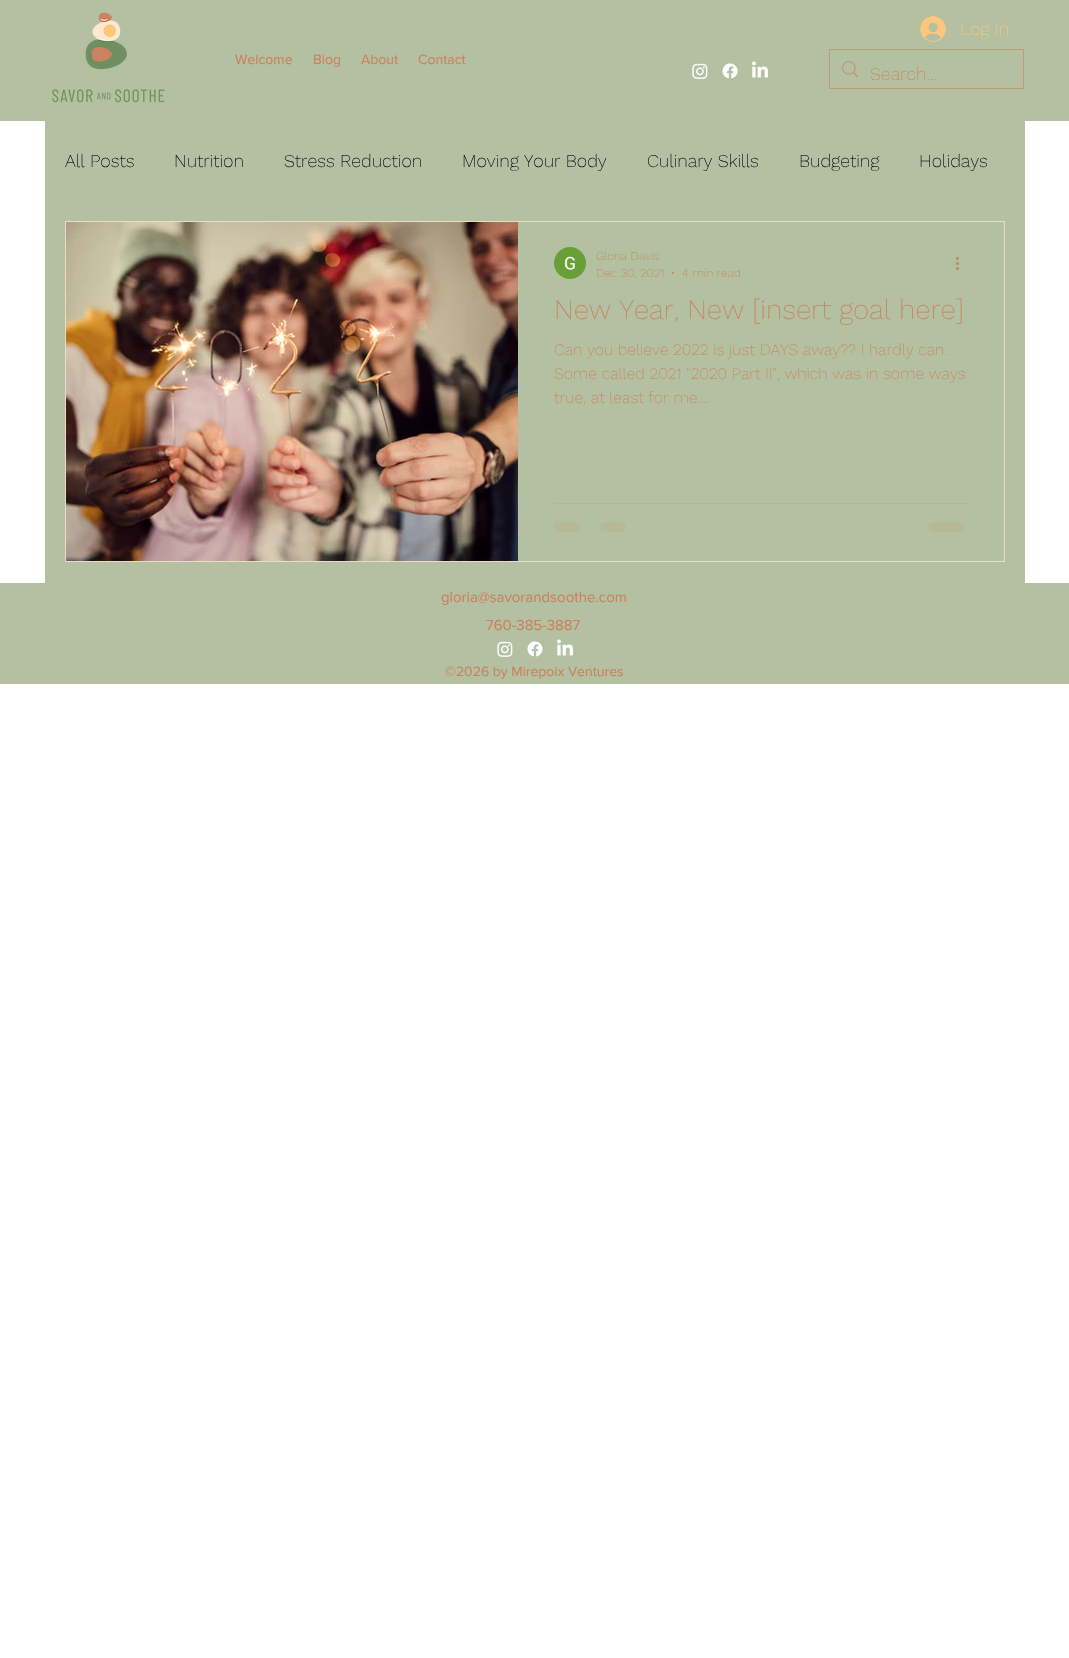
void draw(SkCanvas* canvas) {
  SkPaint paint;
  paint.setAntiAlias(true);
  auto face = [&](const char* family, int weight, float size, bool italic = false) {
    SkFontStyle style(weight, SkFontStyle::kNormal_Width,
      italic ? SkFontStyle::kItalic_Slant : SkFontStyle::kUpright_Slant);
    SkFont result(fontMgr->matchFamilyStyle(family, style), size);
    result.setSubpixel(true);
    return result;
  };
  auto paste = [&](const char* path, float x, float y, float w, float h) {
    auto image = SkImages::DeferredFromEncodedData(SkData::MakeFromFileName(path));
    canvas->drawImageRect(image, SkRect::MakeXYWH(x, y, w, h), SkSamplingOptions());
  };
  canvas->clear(0xffffffff);
  paint.setColor(0xffb3c0a2);
  canvas->drawRect(SkRect::MakeXYWH(0, 0, 1069, 121), paint);
  paste("img/1.png", 52, 12, 113, 91);
  paste("img/2.png", 920, 16, 26, 26);
  paste("img/3.png", 692, 63, 16, 16);
  paste("img/4.png", 722, 63, 16, 16);
  paste("img/5.png", 751, 61, 18, 17);
  paint.setStroke(true);
  paint.setStrokeWidth(1);
  paint.setColor(0xffc29a79);
  canvas->drawRect(SkRect::MakeXYWH(829.5f, 49.5f, 194, 39), paint);
  paste("img/6.png", 842, 61, 16, 16);
  paint.setStroke(false);
  paint.setColor(0xffb3c0a2);
  canvas->drawRect(SkRect::MakeXYWH(45, 121, 980, 462), paint);
  paint.setStroke(true);
  paint.setColor(0xffe9ddc3);
  canvas->drawRect(SkRect::MakeXYWH(65.5f, 221.5f, 939, 340), paint);
  paste("img/7.png", 66, 222, 452, 339);
  paste("img/8.png", 554, 247, 32, 32);
  paint.setStroke(false);
  paint.setColor(0xffcc805d);
  canvas->drawCircle(673, 273, 1, paint);
  paste("img/9.png", 956, 257, 3, 13);
  paint.setColor(0xffb8b394);
  canvas->drawRect(SkRect::MakeXYWH(554, 503, 414, 1), paint);
  paint.setColor(0xffb6b89a);
  canvas->drawRoundRect(SkRect::MakeXYWH(554, 522, 26, 10), 5, 5, paint);
  canvas->drawRoundRect(SkRect::MakeXYWH(600, 522, 26, 10), 5, 5, paint);
  canvas->drawRoundRect(SkRect::MakeXYWH(928, 522, 36, 10), 5, 5, paint);
  paint.setColor(0xffb3c0a2);
  canvas->drawRect(SkRect::MakeXYWH(0, 583, 1069, 101), paint);
  paste("img/3.png", 497, 641, 16, 16);
  paste("img/4.png", 527, 641, 16, 16);
  paste("img/5.png", 556, 639, 18, 17);
  auto f0 = face("Work Sans", 200, 18);
  paint.setColor(0xfffec67c);
  canvas->drawString("Log In", 960, 35, f0, paint);
  auto f1 = face("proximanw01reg", 400, 14);
  paint.setColor(0xffcc805d);
  {
    const struct { const char* s; float x, y; } items[] = {
      {"Welcome", 235, 64},
      {"Blog", 313, 64},
      {"About", 361, 64},
      {"Contact", 418, 64},
    };
    for (auto [s, x, y] : items) {
      canvas->drawString(s, x, y, f1, paint);
    }
  }
  canvas->drawString("Search...", 870, 80, f0, paint);
  paint.setColor(0xff000000);
  {
    const struct { const char* s; float x, y; } items[] = {
      {"All Posts", 65, 167},
      {"Nutrition", 174, 167},
      {"Stress Reduction", 284, 167},
      {"Moving Your Body", 462, 167},
      {"Culinary Skills", 647, 167},
      {"Budgeting", 799, 167},
      {"Holidays", 919, 167},
    };
    for (auto [s, x, y] : items) {
      canvas->drawString(s, x, y, f0, paint);
    }
  }
  auto f2 = face("Work Sans", 200, 12);
  paint.setColor(0xffcc805d);
  {
    const struct { const char* s; float x, y; } items[] = {
      {"Gloria Davis", 596, 260},
      {"Dec 30, 2021", 596, 277},
      {"4 min read", 682, 277},
    };
    for (auto [s, x, y] : items) {
      canvas->drawString(s, x, y, f2, paint);
    }
  }
  auto f3 = face("Work Sans", 200, 28);
  canvas->drawString("New Year, New [insert goal here]", 554, 319, f3, paint);
  auto f4 = face("Work Sans", 200, 16);
  {
    const struct { const char* s; float x, y; } items[] = {
      {"Can you believe 2022 is just DAYS away?\077 I hardly can.", 554, 355},
      {"Some called 2021 \"2020 Part II\", which was in some ways", 554, 379},
      {"true, at least for me....", 554, 403},
    };
    for (auto [s, x, y] : items) {
      canvas->drawString(s, x, y, f4, paint);
    }
  }
  auto f5 = face("proximanw01reg", 400, 15);
  canvas->drawString("gloria@savorandsoothe.com", 441, 602, f5, paint);
  canvas->drawString("760-385-3887", 486, 630, f5, paint);
  canvas->drawString("©2026 by Mirepoix Ventures", 445, 676, f1, paint);
}
